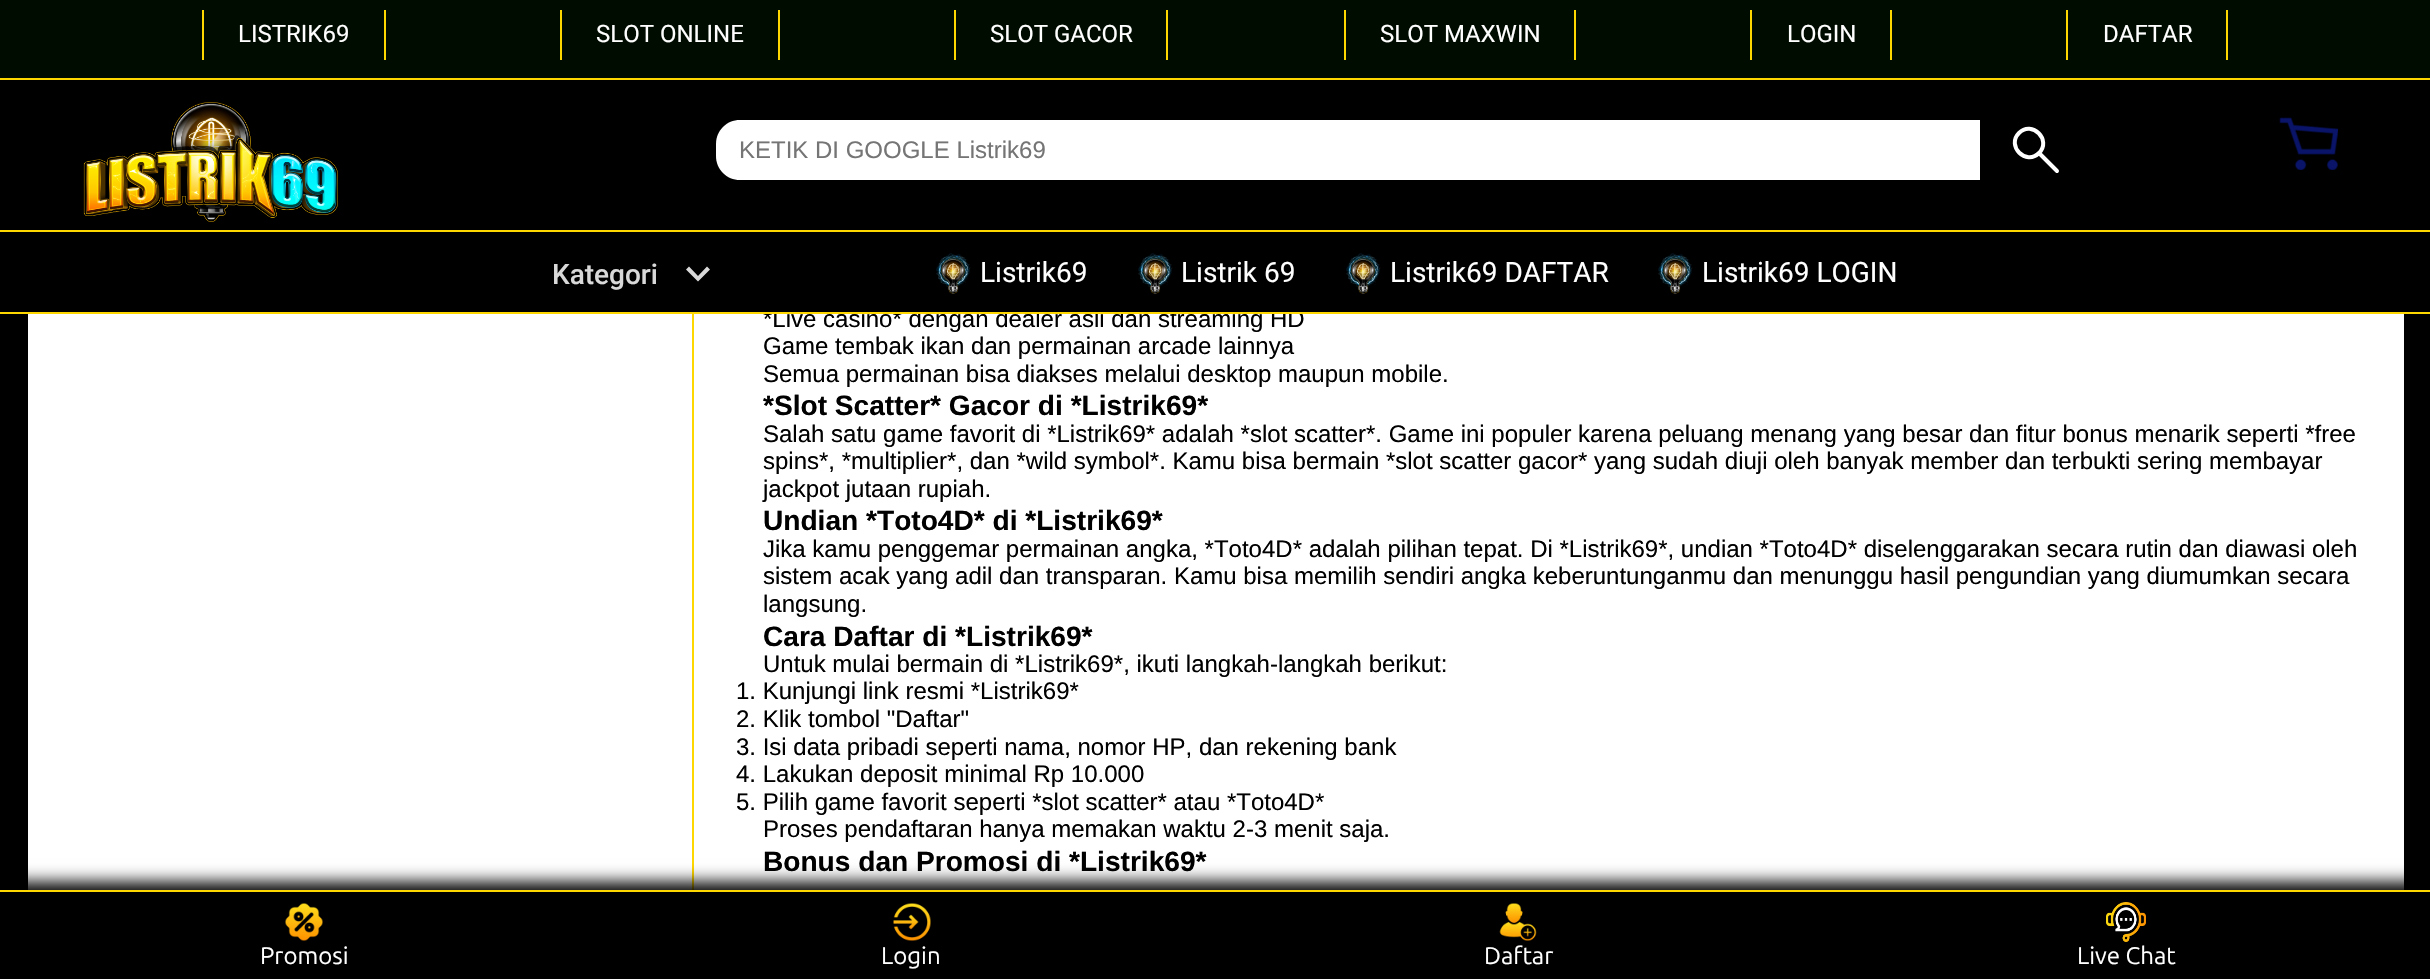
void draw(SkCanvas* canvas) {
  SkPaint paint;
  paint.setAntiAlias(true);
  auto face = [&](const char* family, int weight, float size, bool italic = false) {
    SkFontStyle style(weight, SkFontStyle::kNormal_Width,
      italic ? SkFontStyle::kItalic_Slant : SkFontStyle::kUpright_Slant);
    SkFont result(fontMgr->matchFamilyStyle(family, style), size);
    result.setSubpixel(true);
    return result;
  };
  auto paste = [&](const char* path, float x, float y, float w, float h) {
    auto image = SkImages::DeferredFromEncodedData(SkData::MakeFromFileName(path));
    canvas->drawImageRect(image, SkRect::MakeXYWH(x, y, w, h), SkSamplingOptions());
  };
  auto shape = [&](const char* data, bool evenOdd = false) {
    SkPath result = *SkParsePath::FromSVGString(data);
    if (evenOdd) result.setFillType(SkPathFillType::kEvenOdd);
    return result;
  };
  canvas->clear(0xff000000);
  {
    const struct { float x, y, w, h; SkColor color; } items[] = {
      {0, 0, 2430, 78, 0xff000c00},
      {0, 78, 2430, 2, 0xffffd700},
      {384, 10, 2, 50, 0xffffd700},
      {202, 10, 2, 50, 0xffffd700},
      {778, 10, 2, 50, 0xffffd700},
      {560, 10, 2, 50, 0xffffd700},
      {1166, 10, 2, 50, 0xffffd700},
      {954, 10, 2, 50, 0xffffd700},
      {1574, 10, 2, 50, 0xffffd700},
      {1344, 10, 2, 50, 0xffffd700},
      {1890, 10, 2, 50, 0xffffd700},
      {1750, 10, 2, 50, 0xffffd700},
      {2226, 10, 2, 50, 0xffffd700},
      {2066, 10, 2, 50, 0xffffd700},
    };
    for (auto [x, y, w, h, color] : items) {
      paint.setColor(color);
      canvas->drawRect(SkRect::MakeXYWH(x, y, w, h), paint);
    }
  }
  paste("img/1.png", 83, 102, 255, 120);
  paint.setColor(0xffffffff);
  canvas->drawPath(shape("M740 120H1980V180H740C726.5 180 716 169.5 716 156V144C716 130.5 726.5 120 740 120Z"), paint);
  paint.setStroke(true);
  paint.setStrokeWidth(4);
  paint.setStrokeCap(SkPaint::kRound_Cap);
  paint.setStrokeJoin(SkPaint::kRound_Join);
  canvas->drawPath(shape("M2039 153C2052 140 2032 120 2019 133C2006 146 2026 166 2039 153ZM2039.5 153.5L2057 171"), paint);
  paste("img/2.png", 2279, 117, 59, 53);
  paint.setStroke(false);
  paint.setColor(0xffffd700);
  canvas->drawRect(SkRect::MakeXYWH(0, 230, 2430, 2), paint);
  paint.setColor(0xffd9d9d9);
  canvas->drawPath(shape("M707 266.5L710 269.5L698 281.5L686 269.5L689 266.5L698 276Z"), paint);
  paste("img/3.png", 936, 253, 35, 41);
  paste("img/4.png", 1138, 253, 35, 41);
  paste("img/4.png", 1346, 253, 35, 41);
  paste("img/4.png", 1658, 253, 35, 41);
  paint.setColor(0xffffffff);
  canvas->drawRect(SkRect::MakeXYWH(28, 314, 2376, 576), paint);
  paint.setColor(0xffffd700);
  canvas->drawRect(SkRect::MakeXYWH(692, 314, 2, 576), paint);
  paint.setColor(0xff000000);
  paint.setMaskFilter(SkMaskFilter::MakeBlur(kNormal_SkBlurStyle, 8));
  canvas->drawRect(SkRect::MakeXYWH(-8, 882, 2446, 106), paint);
  paint.setMaskFilter(nullptr);
  paint.setColor(0xffffd700);
  canvas->drawRect(SkRect::MakeXYWH(0, 890, 2430, 2), paint);
  paste("img/5.png", 285, 903, 38, 38);
  paste("img/6.png", 893, 903, 38, 38);
  paste("img/7.png", 1499, 903, 38, 38);
  paste("img/8.png", 2106, 902, 40, 40);
  auto f0 = face("Roboto", 400, 24);
  paint.setColor(0xffffffff);
  {
    const struct { const char* s; float x, y; } items[] = {
      {"LISTRIK69", 238, 42},
      {"SLOT ONLINE", 596, 42},
      {"SLOT GACOR", 990, 42},
      {"SLOT MAXWIN", 1380, 42},
      {"LOGIN", 1787, 42},
      {"DAFTAR", 2103, 42},
    };
    for (auto [s, x, y] : items) {
      canvas->drawString(s, x, y, f0, paint);
    }
  }
  auto f1 = face("Liberation Sans", 400, 24);
  paint.setColor(0xff757575);
  canvas->drawString("KETIK DI GOOGLE Listrik69", 739, 158, f1, paint);
  auto f2 = face("Roboto", 500, 28);
  paint.setColor(0xffd9d9d9);
  canvas->drawString("Kategori", 552, 284, f2, paint);
  auto f3 = face("Roboto", 400, 28);
  paint.setColor(0xffffffff);
  {
    const struct { const char* s; float x, y; } items[] = {
      {"Listrik69", 980, 282},
      {"Listrik 69", 1181, 282},
      {"Listrik69 DAFTAR", 1390, 282},
      {"Listrik69 LOGIN", 1702, 282},
    };
    for (auto [s, x, y] : items) {
      canvas->drawString(s, x, y, f3, paint);
    }
  }
  paint.setColor(0xff000000);
  canvas->drawString("*Live casino* dengan dealer asli dan streaming HD", 763, 327, f1, paint);
  paint.setColor(0xffffd700);
  canvas->drawRect(SkRect::MakeXYWH(0, 312, 2430, 2), paint);
  paint.setColor(0xff000000);
  canvas->drawString("Game tembak ikan dan permainan arcade lainnya", 763, 354, f1, paint);
  canvas->drawString("Semua permainan bisa diakses melalui desktop maupun mobile.", 763, 382, f1, paint);
  auto f4 = face("Liberation Sans", 700, 28.1f);
  canvas->drawString("*Slot Scatter* Gacor di *Listrik69*", 763, 415, f4, paint);
  {
    const struct { const char* s; float x, y; } items[] = {
      {"Salah satu game favorit di *Listrik69* adalah *slot scatter*. Game ini populer karena peluang menang yang besar dan fitur bonus menarik seperti *free", 763, 442},
      {"spins*, *multiplier*, dan *wild symbol*. Kamu bisa bermain *slot scatter gacor* yang sudah diuji oleh banyak member dan terbukti sering membayar", 763, 469},
      {"jackpot jutaan rupiah.", 763, 497},
    };
    for (auto [s, x, y] : items) {
      canvas->drawString(s, x, y, f1, paint);
    }
  }
  canvas->drawString("Undian *Toto4D* di *Listrik69*", 763, 530, f4, paint);
  {
    const struct { const char* s; float x, y; } items[] = {
      {"Jika kamu penggemar permainan angka, *Toto4D* adalah pilihan tepat. Di *Listrik69*, undian *Toto4D* diselenggarakan secara rutin dan diawasi oleh", 763, 557},
      {"sistem acak yang adil dan transparan. Kamu bisa memilih sendiri angka keberuntunganmu dan menunggu hasil pengundian yang diumumkan secara", 763, 584},
      {"langsung.", 763, 612},
    };
    for (auto [s, x, y] : items) {
      canvas->drawString(s, x, y, f1, paint);
    }
  }
  canvas->drawString("Cara Daftar di *Listrik69*", 763, 646, f4, paint);
  {
    const struct { const char* s; float x, y; } items[] = {
      {"Untuk mulai bermain di *Listrik69*, ikuti langkah-langkah berikut:", 763, 672},
      {"1. Kunjungi link resmi *Listrik69*", 736, 699},
      {"2. Klik tombol \"Daftar\"", 736, 727},
      {"3. Isi data pribadi seperti nama, nomor HP, dan rekening bank", 736, 755},
      {"4. Lakukan deposit minimal Rp 10.000", 736, 782},
      {"5. Pilih game favorit seperti *slot scatter* atau *Toto4D*", 736, 810},
      {"Proses pendaftaran hanya memakan waktu 2-3 menit saja.", 763, 837},
    };
    for (auto [s, x, y] : items) {
      canvas->drawString(s, x, y, f1, paint);
    }
  }
  canvas->drawString("Bonus dan Promosi di *Listrik69*", 763, 871, f4, paint);
  auto f5 = face("Ubuntu", 400, 24);
  paint.setColor(0xffffffff);
  {
    const struct { const char* s; float x, y; } items[] = {
      {"Promosi", 260, 964},
      {"Login", 881, 964},
      {"Daftar", 1484, 964},
      {"Live Chat", 2077, 964},
    };
    for (auto [s, x, y] : items) {
      canvas->drawString(s, x, y, f5, paint);
    }
  }
}
